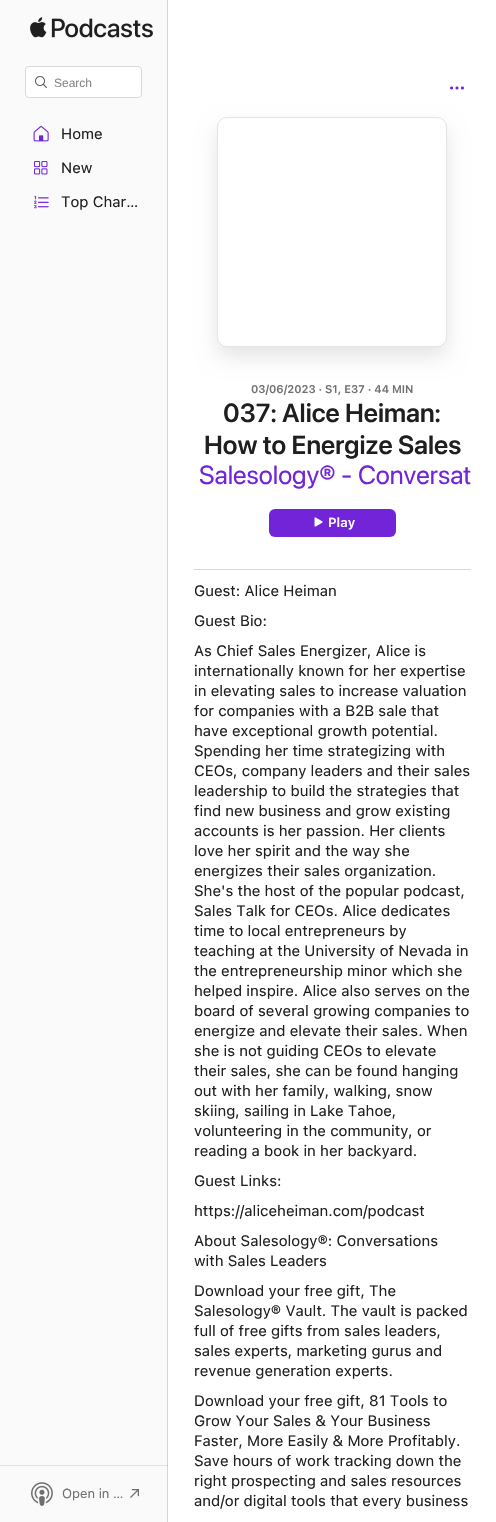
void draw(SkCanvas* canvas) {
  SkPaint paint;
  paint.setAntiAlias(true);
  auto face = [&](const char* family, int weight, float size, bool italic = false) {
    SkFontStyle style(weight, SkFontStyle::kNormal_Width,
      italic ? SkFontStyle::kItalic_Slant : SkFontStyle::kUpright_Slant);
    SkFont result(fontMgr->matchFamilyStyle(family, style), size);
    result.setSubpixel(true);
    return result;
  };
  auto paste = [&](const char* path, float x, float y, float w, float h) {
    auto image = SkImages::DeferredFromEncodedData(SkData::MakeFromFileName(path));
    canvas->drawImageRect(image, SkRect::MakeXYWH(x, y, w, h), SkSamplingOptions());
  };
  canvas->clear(0xffffffff);
  {
    const struct { float x, y, w, h; SkColor color; } items[] = {
      {0, 0, 167, 1522, 0xfffafafa},
      {0, 1465, 168, 1, 0xffe1e1e1},
      {167, 0, 1, 1522, 0xffd5d5d5},
      {167, 1465, 1, 1, 0xffc0c0c0},
    };
    for (auto [x, y, w, h, color] : items) {
      paint.setColor(color);
      canvas->drawRect(SkRect::MakeXYWH(x, y, w, h), paint);
    }
  }
  paste("img/1.png", 30, 17, 123, 21);
  paint.setColor(0xffffffff);
  canvas->drawRoundRect(SkRect::MakeXYWH(25.5f, 66.5f, 116, 31), 3.5f, 3.5f, paint);
  paint.setStroke(true);
  paint.setStrokeWidth(1);
  paint.setColor(0xffd9d9d9);
  canvas->drawRoundRect(SkRect::MakeXYWH(25.5f, 66.5f, 116, 31), 3.5f, 3.5f, paint);
  paste("img/2.png", 35, 76, 12, 12);
  paste("img/3.png", 33, 126, 16, 16);
  paste("img/4.png", 34, 161, 14, 14);
  paste("img/5.png", 34, 196, 15, 13);
  paste("img/6.png", 31, 1482, 22, 24);
  paste("img/7.png", 130, 1489, 9, 9);
  paste("img/8.png", 450, 86, 14, 4);
  paint.setStroke(false);
  paint.setColor(0x1a000000);
  paint.setMaskFilter(SkMaskFilter::MakeBlur(kNormal_SkBlurStyle, 10));
  canvas->drawRoundRect(SkRect::MakeXYWH(217, 127, 230, 230), 10, 10, paint);
  paint.setMaskFilter(nullptr);
  paint.setColor(0xffffffff);
  canvas->drawRoundRect(SkRect::MakeXYWH(217, 117, 230, 230), 10, 10, paint);
  paint.setStroke(true);
  paint.setColor(0x1a000000);
  canvas->drawRoundRect(SkRect::MakeXYWH(217.5f, 117.5f, 229, 229), 9.5f, 9.5f, paint);
  paint.setStroke(false);
  paint.setColor(0xff7224d8);
  canvas->drawRoundRect(SkRect::MakeXYWH(269, 509, 127, 28), 6, 6, paint);
  paste("img/9.png", 314, 517, 9, 10);
  paint.setColor(0xffd9d9d9);
  canvas->drawRect(SkRect::MakeXYWH(194, 569, 277, 1), paint);
  auto f0 = face("Liberation Sans", 400, 12);
  paint.setColor(0xff858585);
  canvas->drawString("Search", 54, 87, f0, paint);
  auto f1 = face("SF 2", 400, 15);
  paint.setColor(0xff1f1f1f);
  {
    const struct { const char* s; float x, y; } items[] = {
      {"Home", 61, 139},
      {"New", 61, 173},
      {"Top Char…", 61, 207},
    };
    for (auto [s, x, y] : items) {
      canvas->drawString(s, x, y, f1, paint);
    }
  }
  auto f2 = face("SF 2", 400, 13);
  paint.setColor(0xff707070);
  canvas->drawString("Open in …", 62, 1498, f2, paint);
  auto f3 = face("SF", 600, 11);
  canvas->drawString("03/06/2023 · S1, E37 · 44 MIN", 251, 393, f3, paint);
  auto f4 = face("SF 2", 600, 26);
  paint.setColor(0xff1f1f1f);
  canvas->drawString("037: Alice Heiman:", 223, 422, f4, paint);
  canvas->drawString("How to Energize Sales", 204, 454, f4, paint);
  auto f5 = face("SF", 400, 26);
  paint.setColor(0xff7224d8);
  canvas->drawString("Salesology® - Conversat", 199, 484, f5, paint);
  auto f6 = face("SF", 600, 13);
  paint.setColor(0xffffffff);
  canvas->drawString("Play", 328, 527, f6, paint);
  paint.setColor(0xff1f1f1f);
  {
    const struct { const char* s; float x, y; } items[] = {
      {"Guest: Alice Heiman", 194, 596},
      {"Guest Bio:", 194, 626},
      {"As Chief Sales Energizer, Alice is", 194, 656},
      {"internationally known for her expertise", 194, 676},
      {"in elevating sales to increase valuation", 194, 696},
      {"for companies with a B2B sale that", 194, 716},
      {"have exceptional growth potential.", 194, 736},
      {"Spending her time strategizing with", 194, 756},
      {"CEOs, company leaders and their sales", 194, 776},
      {"leadership to build the strategies that", 194, 796},
      {"find new business and grow existing", 194, 816},
      {"accounts is her passion. Her clients", 194, 836},
      {"love her spirit and the way she", 194, 856},
      {"energizes their sales organization.", 194, 876},
      {"She's the host of the popular podcast,", 194, 896},
      {"Sales Talk for CEOs. Alice dedicates", 194, 916},
      {"time to local entrepreneurs by", 194, 936},
      {"teaching at the University of Nevada in", 194, 956},
      {"the entrepreneurship minor which she", 194, 976},
      {"helped inspire. Alice also serves on the", 194, 996},
      {"board of several growing companies to", 194, 1016},
      {"energize and elevate their sales. When", 194, 1036},
      {"she is not guiding CEOs to elevate", 194, 1056},
      {"their sales, she can be found hanging", 194, 1076},
      {"out with her family, walking, snow", 194, 1096},
      {"skiing, sailing in Lake Tahoe,", 194, 1116},
      {"volunteering in the community, or", 194, 1136},
      {"reading a book in her backyard.", 194, 1156},
      {"Guest Links:", 194, 1186},
      {"https://aliceheiman.com/podcast", 194, 1216},
      {"About Salesology®: Conversations", 194, 1246},
      {"with Sales Leaders", 194, 1266},
      {"Download your free gift, The", 194, 1296},
      {"Salesology® Vault. The vault is packed", 194, 1316},
      {"full of free gifts from sales leaders,", 194, 1336},
      {"sales experts, marketing gurus and", 194, 1356},
      {"revenue generation experts.", 194, 1376},
      {"Download your free gift, 81 Tools to", 194, 1406},
      {"Grow Your Sales & Your Business", 194, 1426},
      {"Faster, More Easily & More Profitably.", 194, 1446},
      {"Save hours of work tracking down the", 194, 1466},
      {"right prospecting and sales resources", 194, 1486},
      {"and/or digital tools that every business", 194, 1506},
    };
    for (auto [s, x, y] : items) {
      canvas->drawString(s, x, y, f1, paint);
    }
  }
}
